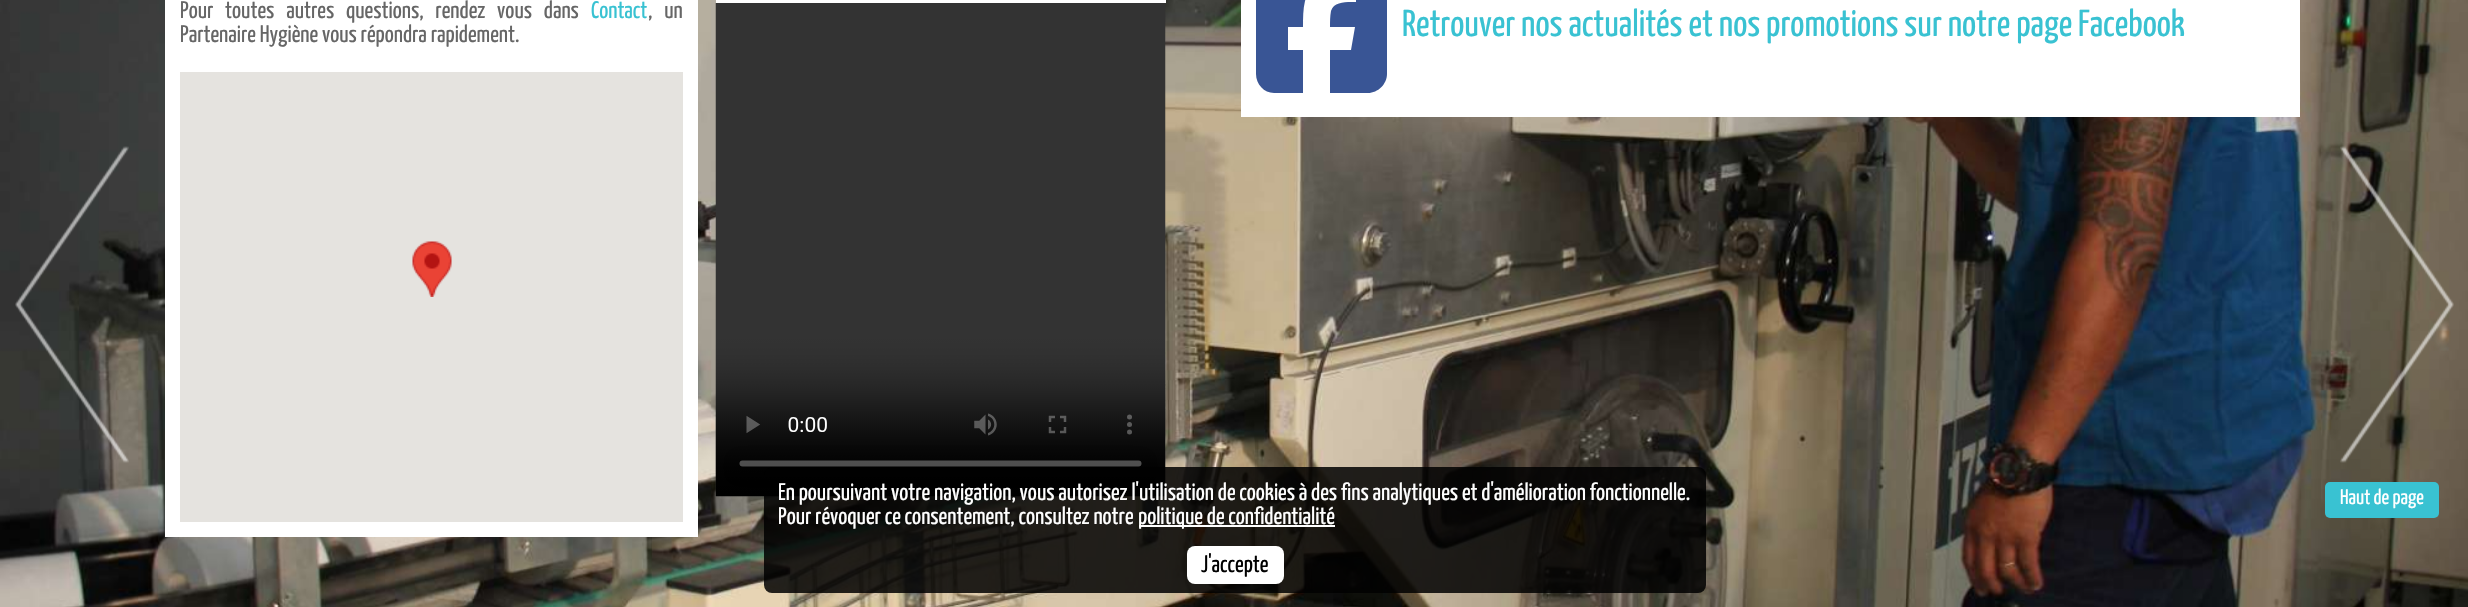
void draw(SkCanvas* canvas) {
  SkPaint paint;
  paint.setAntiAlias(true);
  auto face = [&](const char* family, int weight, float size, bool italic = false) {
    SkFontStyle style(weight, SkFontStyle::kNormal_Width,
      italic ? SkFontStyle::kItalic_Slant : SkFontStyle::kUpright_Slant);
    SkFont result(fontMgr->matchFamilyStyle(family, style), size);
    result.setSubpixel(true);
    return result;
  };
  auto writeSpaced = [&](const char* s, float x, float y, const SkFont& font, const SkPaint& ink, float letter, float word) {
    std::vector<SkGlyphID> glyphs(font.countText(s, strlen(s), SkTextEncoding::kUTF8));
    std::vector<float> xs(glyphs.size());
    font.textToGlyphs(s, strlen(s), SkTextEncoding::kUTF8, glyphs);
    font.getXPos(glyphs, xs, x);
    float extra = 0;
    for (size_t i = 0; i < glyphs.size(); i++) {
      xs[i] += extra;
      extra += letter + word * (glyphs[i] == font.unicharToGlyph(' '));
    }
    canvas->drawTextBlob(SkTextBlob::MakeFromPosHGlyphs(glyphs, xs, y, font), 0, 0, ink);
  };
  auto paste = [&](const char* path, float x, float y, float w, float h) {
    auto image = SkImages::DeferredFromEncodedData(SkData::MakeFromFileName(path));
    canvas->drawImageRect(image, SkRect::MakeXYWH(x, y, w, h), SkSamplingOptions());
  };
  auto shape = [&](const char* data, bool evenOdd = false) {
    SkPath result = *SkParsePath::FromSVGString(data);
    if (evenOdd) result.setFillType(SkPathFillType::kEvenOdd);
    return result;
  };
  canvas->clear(0xffffffff);
  paste("img/1.png", 0, 0, 2468, 607);
  paint.setColor(0xffffffff);
  canvas->drawRect(SkRect::MakeXYWH(165, 0, 533, 537), paint);
  paint.setColor(0xffe5e3df);
  canvas->drawRect(SkRect::MakeXYWH(180, 72, 503, 450), paint);
  paste("img/2.png", 412, 241, 40, 56);
  paint.setColor(0xffffffff);
  canvas->drawRect(SkRect::MakeXYWH(716, 0, 450, 3), paint);
  paste("img/3.png", 715, 3, 451, 494);
  canvas->drawRect(SkRect::MakeXYWH(1241, 0, 1059, 117), paint);
  paint.setColor(0xff395595);
  canvas->drawPath(shape("M1274-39C1264-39 1256-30 1256-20V74C1256 84 1264 93 1274 93H1303V50H1288V27H1303C1303 18 1303 9 1305 1C1312-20 1337-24 1356-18V2C1347 2 1334 1 1331 11C1330 16 1330 22 1330 27H1355L1351 50H1330V93H1368C1378 93 1387 84 1387 74V-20C1387-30 1378-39 1368-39Z"), paint);
  paste("img/4.png", 15, 146, 114, 317);
  paste("img/5.png", 2340, 146, 114, 317);
  paint.setColor(0xd9000000);
  canvas->drawRoundRect(SkRect::MakeXYWH(764, 467, 942, 126), 8, 8, paint);
  paint.setColor(0xffffffff);
  canvas->drawRect(SkRect::MakeXYWH(1139, 525, 196, 2), paint);
  canvas->drawRoundRect(SkRect::MakeXYWH(1187, 546, 97, 38), 8, 8, paint);
  paint.setColor(0xff39c2d2);
  canvas->drawRoundRect(SkRect::MakeXYWH(2325, 482, 114, 36), 5, 5, paint);
  auto f0 = face("Yanone Kaffeesatz", 400, 24);
  paint.setColor(0xff666666);
  writeSpaced("Pour toutes autres questions, rendez vous dans", 180, 18, f0, paint, 0, 8);
  paint.setColor(0xff39c2d2);
  canvas->drawString("Contact", 591, 18, f0, paint);
  paint.setColor(0xff666666);
  writeSpaced(", un", 648, 18, f0, paint, 0, 8);
  canvas->drawString("Partenaire Hygiène vous répondra rapidement.", 180, 42, f0, paint);
  auto f1 = face("Yanone Kaffeesatz", 400, 37.5f);
  paint.setColor(0xff39c2d2);
  canvas->drawString("Retrouver nos actualités et nos promotions sur notre page Facebook", 1402, 36, f1, paint);
  paint.setColor(0xffffffff);
  {
    const struct { const char* s; float x, y; } items[] = {
      {"En poursuivant votre navigation, vous autorisez l'utilisation de cookies à des fins analytiques et d'amélioration fonctionnelle.", 778, 500},
      {"Pour révoquer ce consentement, consultez notre", 778, 524},
      {"politique de confidentialité", 1138, 524},
    };
    for (auto [s, x, y] : items) {
      canvas->drawString(s, x, y, f0, paint);
    }
  }
  paint.setColor(0xff000000);
  canvas->drawString("J'accepte", 1201, 572, f0, paint);
  auto f2 = face("Yanone Kaffeesatz", 400, 21);
  paint.setColor(0xffffffff);
  canvas->drawString("Haut de page", 2340, 504, f2, paint);
}
